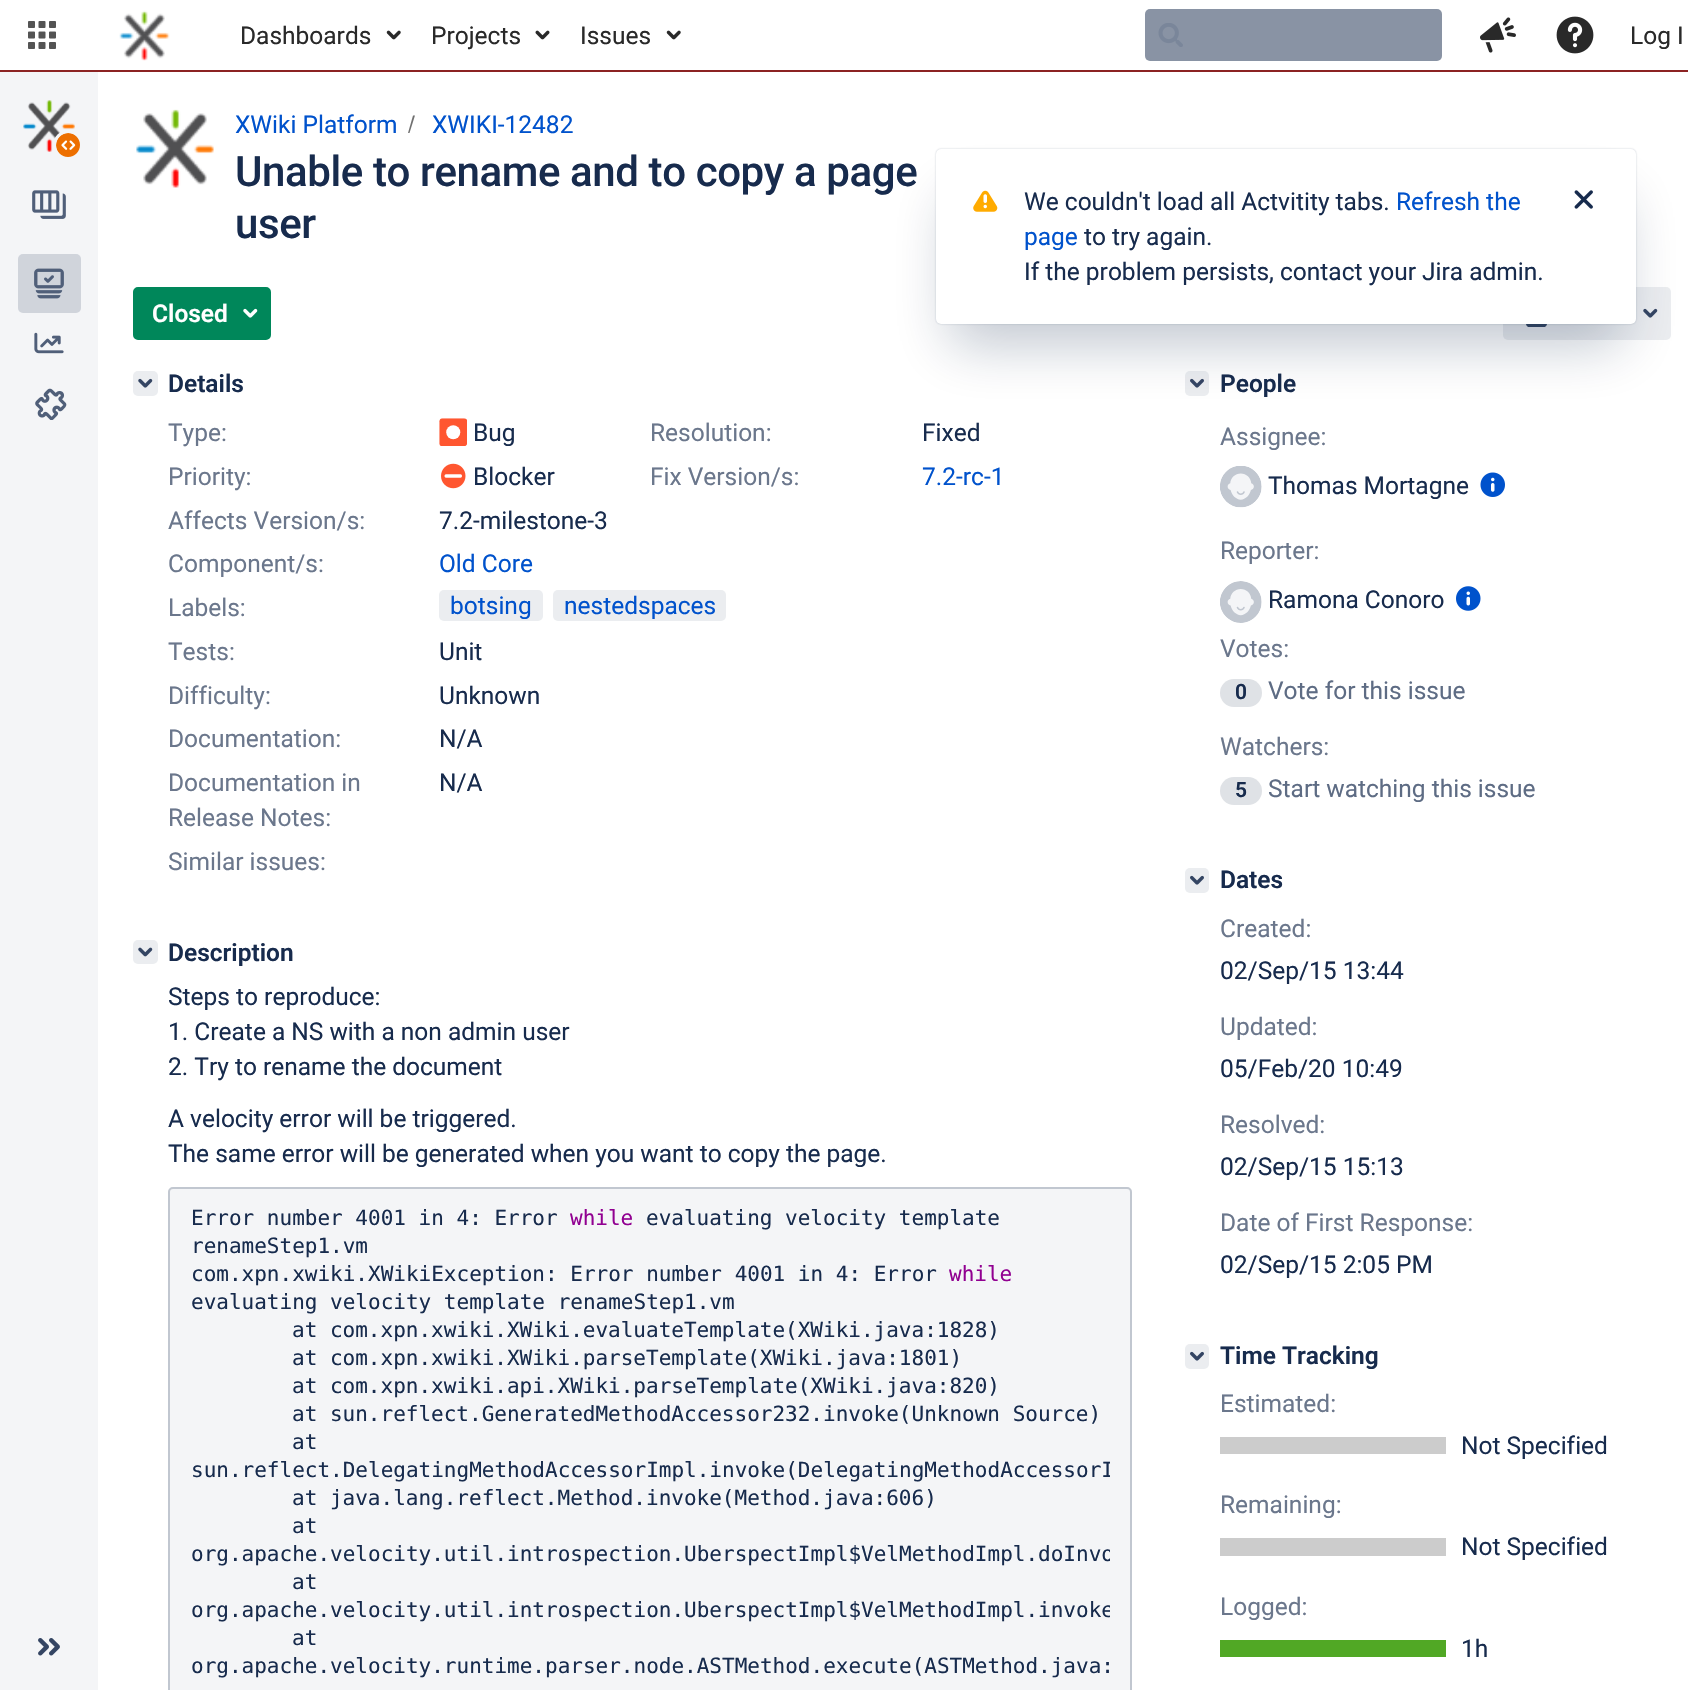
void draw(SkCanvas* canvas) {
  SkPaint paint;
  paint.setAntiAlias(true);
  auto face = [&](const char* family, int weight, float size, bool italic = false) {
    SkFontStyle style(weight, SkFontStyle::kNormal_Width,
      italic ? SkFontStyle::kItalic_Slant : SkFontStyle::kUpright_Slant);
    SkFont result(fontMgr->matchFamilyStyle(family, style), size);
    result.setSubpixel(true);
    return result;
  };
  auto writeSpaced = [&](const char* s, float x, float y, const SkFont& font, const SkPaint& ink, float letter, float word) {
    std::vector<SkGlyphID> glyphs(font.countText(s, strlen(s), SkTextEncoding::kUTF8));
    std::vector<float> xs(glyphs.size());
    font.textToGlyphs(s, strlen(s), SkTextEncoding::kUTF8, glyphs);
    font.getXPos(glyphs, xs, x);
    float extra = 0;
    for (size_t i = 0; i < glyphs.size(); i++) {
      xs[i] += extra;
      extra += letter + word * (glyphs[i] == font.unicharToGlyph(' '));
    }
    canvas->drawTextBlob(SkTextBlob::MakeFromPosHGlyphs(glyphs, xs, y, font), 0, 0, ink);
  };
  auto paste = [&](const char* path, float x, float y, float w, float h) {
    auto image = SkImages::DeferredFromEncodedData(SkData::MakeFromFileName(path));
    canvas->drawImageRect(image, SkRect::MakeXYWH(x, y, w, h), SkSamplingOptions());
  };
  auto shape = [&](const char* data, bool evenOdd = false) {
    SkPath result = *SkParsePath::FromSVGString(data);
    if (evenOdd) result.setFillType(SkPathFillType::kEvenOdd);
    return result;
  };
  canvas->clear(0xffffffff);
  paint.setColor(0xff8c2323);
  canvas->drawRect(SkRect::MakeXYWH(0, 70, 1688, 2), paint);
  paste("img/1.png", 28, 21, 28, 28);
  paste("img/2.png", 119, 10, 51, 51);
  paste("img/3.png", 386, 30, 15, 10);
  paste("img/4.png", 535, 30, 15, 10);
  paste("img/3.png", 666, 30, 15, 10);
  paint.setColor(0xff8993a4);
  canvas->drawRoundRect(SkRect::MakeXYWH(1145, 9, 297, 52), 5, 5, paint);
  paste("img/5.png", 1158, 23, 25, 24);
  paste("img/6.png", 1480, 17, 36, 36);
  paste("img/7.png", 1556, 16, 38, 38);
  paint.setColor(0xfff4f5f7);
  canvas->drawRect(SkRect::MakeXYWH(0, 72, 98, 1618), paint);
  paste("img/8.png", 23, 100, 52, 52);
  canvas->drawCircle(68.5f, 145.5f, 15.5f, paint);
  paste("img/9.png", 56, 133, 24, 24);
  paste("img/10.png", 32, 190, 34, 29);
  paint.setColor(0xffe1e4e9);
  canvas->drawRoundRect(SkRect::MakeXYWH(18, 254, 63, 59), 5, 5, paint);
  paint.setColor(0x14091e42);
  canvas->drawRoundRect(SkRect::MakeXYWH(18, 254, 63, 59), 5, 5, paint);
  paste("img/11.png", 34, 268, 30, 31);
  paste("img/12.png", 34, 332, 30, 22);
  paste("img/13.png", 35, 388, 32, 32);
  paste("img/14.png", 38, 1638, 22, 18);
  paste("img/15.png", 136, 109, 78, 79);
  paint.setColor(0xff707070);
  canvas->drawPath(shape("M409.5 133L415 115.5H413L408 133Z"), paint);
  paint.setColor(0xff00875a);
  canvas->drawRoundRect(SkRect::MakeXYWH(134, 288, 136, 51), 4, 4, paint);
  paint.setStroke(true);
  paint.setStrokeWidth(2);
  canvas->drawRoundRect(SkRect::MakeXYWH(134, 288, 136, 51), 4, 4, paint);
  paste("img/16.png", 243, 308, 15, 10);
  paint.setStroke(false);
  paint.setColor(0xffebedf0);
  canvas->drawRoundRect(SkRect::MakeXYWH(1503, 287, 168, 53), 5, 5, paint);
  paste("img/17.png", 1643, 308, 15, 10);
  paste("img/18.png", 1526, 324, 21, 3);
  canvas->drawRoundRect(SkRect::MakeXYWH(133, 371, 25, 25), 5, 5, paint);
  paste("img/19.png", 138, 378, 15, 10);
  paste("img/20.png", 439, 418, 28, 28);
  paste("img/21.png", 441, 463, 25, 26);
  canvas->drawRoundRect(SkRect::MakeXYWH(439, 590, 104, 31), 5, 5, paint);
  canvas->drawRoundRect(SkRect::MakeXYWH(553, 590, 173, 31), 5, 5, paint);
  canvas->drawRoundRect(SkRect::MakeXYWH(133, 940, 25, 24), 5, 5, paint);
  paste("img/22.png", 138, 947, 15, 10);
  paint.setColor(0xfff4f5f7);
  canvas->drawPath(shape("M173 1187H1127C1130 1187 1132 1189 1132 1192V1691H168V1192C168 1189 170 1187 173 1187Z"), paint);
  paint.setStroke(true);
  paint.setColor(0xffc1c7d0);
  canvas->drawRoundRect(SkRect::MakeXYWH(169, 1188, 962, 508), 4, 4, paint);
  paint.setStroke(false);
  paint.setColor(0xffebedf0);
  canvas->drawRoundRect(SkRect::MakeXYWH(1185, 371, 24, 25), 5, 5, paint);
  paste("img/23.png", 1190, 378, 14, 10);
  paste("img/24.png", 1220, 466, 42, 42);
  paste("img/25.png", 1480, 472, 25, 25);
  paste("img/26.png", 1220, 581, 42, 42);
  paste("img/27.png", 1456, 586, 25, 25);
  paint.setColor(0xffdfe2e6);
  canvas->drawRoundRect(SkRect::MakeXYWH(1220, 679, 42, 28), 14, 14, paint);
  canvas->drawRoundRect(SkRect::MakeXYWH(1220, 777, 42, 28), 14, 14, paint);
  paint.setColor(0xffebedf0);
  canvas->drawRoundRect(SkRect::MakeXYWH(1185, 868, 24, 25), 5, 5, paint);
  paste("img/23.png", 1190, 875, 14, 10);
  canvas->drawRoundRect(SkRect::MakeXYWH(1185, 1344, 24, 25), 5, 5, paint);
  paste("img/23.png", 1190, 1351, 14, 10);
  {
    const struct { float x, y, w, h; SkColor color; } items[] = {
      {1220, 1437, 226, 17, 0xffcccccc},
      {1220, 1538, 226, 18, 0xffcccccc},
      {1220, 1640, 226, 17, 0xff51a825},
    };
    for (auto [x, y, w, h, color] : items) {
      paint.setColor(color);
      canvas->drawRect(SkRect::MakeXYWH(x, y, w, h), paint);
    }
  }
  paint.setColor(0x40091e42);
  paint.setMaskFilter(SkMaskFilter::MakeBlur(kNormal_SkBlurStyle, 1));
  canvas->drawRoundRect(SkRect::MakeXYWH(936, 149, 700, 175), 5, 5, paint);
  paint.setMaskFilter(nullptr);
  paint.setMaskFilter(SkMaskFilter::MakeBlur(kNormal_SkBlurStyle, 28));
  canvas->drawRect(SkRect::MakeXYWH(950, 198, 672, 147), paint);
  paint.setMaskFilter(nullptr);
  paint.setColor(0xffffffff);
  canvas->drawRoundRect(SkRect::MakeXYWH(936, 149, 700, 175), 5, 5, paint);
  paste("img/28.png", 973, 190, 25, 22);
  paste("img/29.png", 1574, 190, 19, 19);
  auto f0 = face("Roboto", 400, 24.5f);
  paint.setColor(0xff292929);
  {
    const struct { const char* s; float x, y; } items[] = {
      {"Dashboards", 240, 44},
      {"Projects", 431, 44},
      {"Issues", 580, 44},
      {"Log I", 1630, 44},
    };
    for (auto [s, x, y] : items) {
      canvas->drawString(s, x, y, f0, paint);
    }
  }
  paint.setColor(0xff0052cc);
  canvas->drawString("XWiki Platform", 235, 133, f0, paint);
  canvas->drawString("XWIKI-12482", 432, 133, f0, paint);
  auto f1 = face("Roboto", 500, 42);
  paint.setColor(0xff172b4d);
  writeSpaced("Unable to rename and to copy a page", 235, 186, f1, paint, -0.4f, 0);
  writeSpaced("user", 235, 238, f1, paint, -0.4f, 0);
  auto f2 = face("Roboto", 600, 24.5f);
  paint.setColor(0xffffffff);
  canvas->drawString("Closed", 152, 322, f2, paint);
  paint.setColor(0xff172b4d);
  canvas->drawString("Details", 168, 392, f2, paint);
  paint.setColor(0xff6b778c);
  canvas->drawString("Type:", 168, 441, f0, paint);
  paint.setColor(0xff172b4d);
  canvas->drawString("Bug", 473, 441, f0, paint);
  paint.setColor(0xff6b778c);
  canvas->drawString("Resolution:", 650, 441, f0, paint);
  paint.setColor(0xff172b4d);
  canvas->drawString("Fixed", 922, 441, f0, paint);
  paint.setColor(0xff6b778c);
  canvas->drawString("Priority:", 168, 485, f0, paint);
  paint.setColor(0xff172b4d);
  canvas->drawString("Blocker", 473, 485, f0, paint);
  paint.setColor(0xff6b778c);
  canvas->drawString("Fix Version/s:", 650, 485, f0, paint);
  paint.setColor(0xff0052cc);
  canvas->drawString("7.2-rc-1", 922, 485, f0, paint);
  paint.setColor(0xff6b778c);
  canvas->drawString("Affects Version/s:", 168, 529, f0, paint);
  paint.setColor(0xff172b4d);
  canvas->drawString("7.2-milestone-3", 439, 529, f0, paint);
  paint.setColor(0xff6b778c);
  canvas->drawString("Component/s:", 168, 572, f0, paint);
  paint.setColor(0xff0052cc);
  canvas->drawString("Old Core", 439, 572, f0, paint);
  paint.setColor(0xff6b778c);
  canvas->drawString("Labels:", 168, 616, f0, paint);
  paint.setColor(0xff0052cc);
  canvas->drawString("botsing", 450, 614, f0, paint);
  canvas->drawString("nestedspaces", 564, 614, f0, paint);
  paint.setColor(0xff6b778c);
  canvas->drawString("Tests:", 168, 660, f0, paint);
  paint.setColor(0xff172b4d);
  canvas->drawString("Unit", 439, 660, f0, paint);
  paint.setColor(0xff6b778c);
  canvas->drawString("Difficulty:", 168, 704, f0, paint);
  paint.setColor(0xff172b4d);
  canvas->drawString("Unknown", 439, 704, f0, paint);
  paint.setColor(0xff6b778c);
  canvas->drawString("Documentation:", 168, 747, f0, paint);
  paint.setColor(0xff172b4d);
  canvas->drawString("N/A", 439, 747, f0, paint);
  paint.setColor(0xff6b778c);
  canvas->drawString("Documentation in", 168, 791, f0, paint);
  canvas->drawString("Release Notes:", 168, 826, f0, paint);
  paint.setColor(0xff172b4d);
  canvas->drawString("N/A", 439, 791, f0, paint);
  paint.setColor(0xff6b778c);
  canvas->drawString("Similar issues:", 168, 870, f0, paint);
  paint.setColor(0xff172b4d);
  canvas->drawString("Description", 168, 961, f2, paint);
  {
    const struct { const char* s; float x, y; } items[] = {
      {"Steps to reproduce:", 168, 1005},
      {"1. Create a NS with a non admin user", 168, 1040},
      {"2. Try to rename the document", 168, 1075},
      {"A velocity error will be triggered.", 168, 1127},
      {"The same error will be generated when you want to copy the page.", 168, 1162},
    };
    for (auto [s, x, y] : items) {
      canvas->drawString(s, x, y, f0, paint);
    }
  }
  auto f3 = face("DejaVu Sans Mono", 400, 21);
  canvas->drawString("Error number 4001 in 4: Error", 191, 1225, f3, paint);
  paint.setColor(0xff910091);
  canvas->drawString("while", 570, 1225, f3, paint);
  paint.setColor(0xff172b4d);
  {
    const struct { const char* s; float x, y; } items[] = {
      {"evaluating velocity template", 646, 1225},
      {"renameStep1.vm", 191, 1253},
      {"com.xpn.xwiki.XWikiException: Error number 4001 in 4: Error", 191, 1281},
    };
    for (auto [s, x, y] : items) {
      canvas->drawString(s, x, y, f3, paint);
    }
  }
  paint.setColor(0xff910091);
  canvas->drawString("while", 949, 1281, f3, paint);
  paint.setColor(0xff172b4d);
  {
    const struct { const char* s; float x, y; } items[] = {
      {"evaluating velocity template renameStep1.vm", 191, 1309},
      {"at com.xpn.xwiki.XWiki.evaluateTemplate(XWiki.java:1828)", 292, 1337},
      {"at com.xpn.xwiki.XWiki.parseTemplate(XWiki.java:1801)", 292, 1365},
      {"at com.xpn.xwiki.api.XWiki.parseTemplate(XWiki.java:820)", 292, 1393},
      {"at sun.reflect.GeneratedMethodAccessor232.invoke(Unknown Source)", 292, 1421},
      {"at", 292, 1449},
    };
    for (auto [s, x, y] : items) {
      canvas->drawString(s, x, y, f3, paint);
    }
  }
  canvas->save();
  canvas->clipRect(SkRect::MakeXYWH(191, 1204, 919, 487));
  canvas->drawString("sun.reflect.DelegatingMethodAccessorImpl.invoke(DelegatingMethodAccessorI", 191, 1477, f3, paint);
  canvas->restore();
  canvas->drawString("at java.lang.reflect.Method.invoke(Method.java:606)", 292, 1505, f3, paint);
  canvas->drawString("at", 292, 1533, f3, paint);
  canvas->save();
  canvas->clipRect(SkRect::MakeXYWH(191, 1204, 919, 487));
  canvas->drawString("org.apache.velocity.util.introspection.UberspectImpl$VelMethodImpl.doInvo", 191, 1561, f3, paint);
  canvas->restore();
  canvas->drawString("at", 292, 1589, f3, paint);
  canvas->save();
  canvas->clipRect(SkRect::MakeXYWH(191, 1204, 919, 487));
  canvas->drawString("org.apache.velocity.util.introspection.UberspectImpl$VelMethodImpl.invoke", 191, 1617, f3, paint);
  canvas->restore();
  canvas->drawString("at", 292, 1645, f3, paint);
  canvas->drawString("org.apache.velocity.runtime.parser.node.ASTMethod.execute(ASTMethod.java:", 191, 1673, f3, paint);
  canvas->drawString("People", 1220, 392, f2, paint);
  paint.setColor(0xff6b778c);
  canvas->drawString("Assignee:", 1220, 445, f0, paint);
  paint.setColor(0xff172b4d);
  canvas->drawString("Thomas Mortagne", 1268, 494, f0, paint);
  paint.setColor(0xff6b778c);
  canvas->drawString("Reporter:", 1220, 559, f0, paint);
  paint.setColor(0xff172b4d);
  canvas->drawString("Ramona Conoro", 1268, 608, f0, paint);
  paint.setColor(0xff6b778c);
  canvas->drawString("Votes:", 1220, 657, f0, paint);
  auto f4 = face("Roboto", 600, 21);
  paint.setColor(0xff172b4d);
  canvas->drawString("0", 1235, 699, f4, paint);
  paint.setColor(0xff5e6c84);
  canvas->drawString("Vote for this issue", 1268, 699, f0, paint);
  paint.setColor(0xff6b778c);
  canvas->drawString("Watchers:", 1220, 755, f0, paint);
  paint.setColor(0xff172b4d);
  canvas->drawString("5", 1235, 797, f4, paint);
  paint.setColor(0xff5e6c84);
  canvas->drawString("Start watching this issue", 1268, 797, f0, paint);
  paint.setColor(0xff172b4d);
  canvas->drawString("Dates", 1220, 888, f2, paint);
  paint.setColor(0xff6b778c);
  canvas->drawString("Created:", 1220, 937, f0, paint);
  paint.setColor(0xff172b4d);
  canvas->drawString("02/Sep/15 13:44", 1220, 979, f0, paint);
  paint.setColor(0xff6b778c);
  canvas->drawString("Updated:", 1220, 1035, f0, paint);
  paint.setColor(0xff172b4d);
  canvas->drawString("05/Feb/20 10:49", 1220, 1077, f0, paint);
  paint.setColor(0xff6b778c);
  canvas->drawString("Resolved:", 1220, 1133, f0, paint);
  paint.setColor(0xff172b4d);
  canvas->drawString("02/Sep/15 15:13", 1220, 1175, f0, paint);
  paint.setColor(0xff6b778c);
  canvas->drawString("Date of First Response:", 1220, 1231, f0, paint);
  paint.setColor(0xff172b4d);
  canvas->drawString("02/Sep/15 2:05 PM", 1220, 1273, f0, paint);
  canvas->drawString("Time Tracking", 1220, 1364, f2, paint);
  paint.setColor(0xff6b778c);
  canvas->drawString("Estimated:", 1220, 1412, f0, paint);
  paint.setColor(0xff172b4d);
  canvas->drawString("Not Specified", 1461, 1454, f0, paint);
  paint.setColor(0xff6b778c);
  canvas->drawString("Remaining:", 1220, 1513, f0, paint);
  paint.setColor(0xff172b4d);
  canvas->drawString("Not Specified", 1461, 1555, f0, paint);
  paint.setColor(0xff6b778c);
  canvas->drawString("Logged:", 1220, 1615, f0, paint);
  paint.setColor(0xff172b4d);
  canvas->drawString("1h", 1461, 1657, f0, paint);
  canvas->drawString("We couldn't load all Actvitity tabs.", 1024, 210, f0, paint);
  paint.setColor(0xff0052cc);
  canvas->drawString("Refresh the", 1396, 210, f0, paint);
  canvas->drawString("page", 1024, 245, f0, paint);
  paint.setColor(0xff172b4d);
  canvas->drawString("to try again.", 1084, 245, f0, paint);
  canvas->drawString("If the problem persists, contact your Jira admin.", 1024, 280, f0, paint);
}
